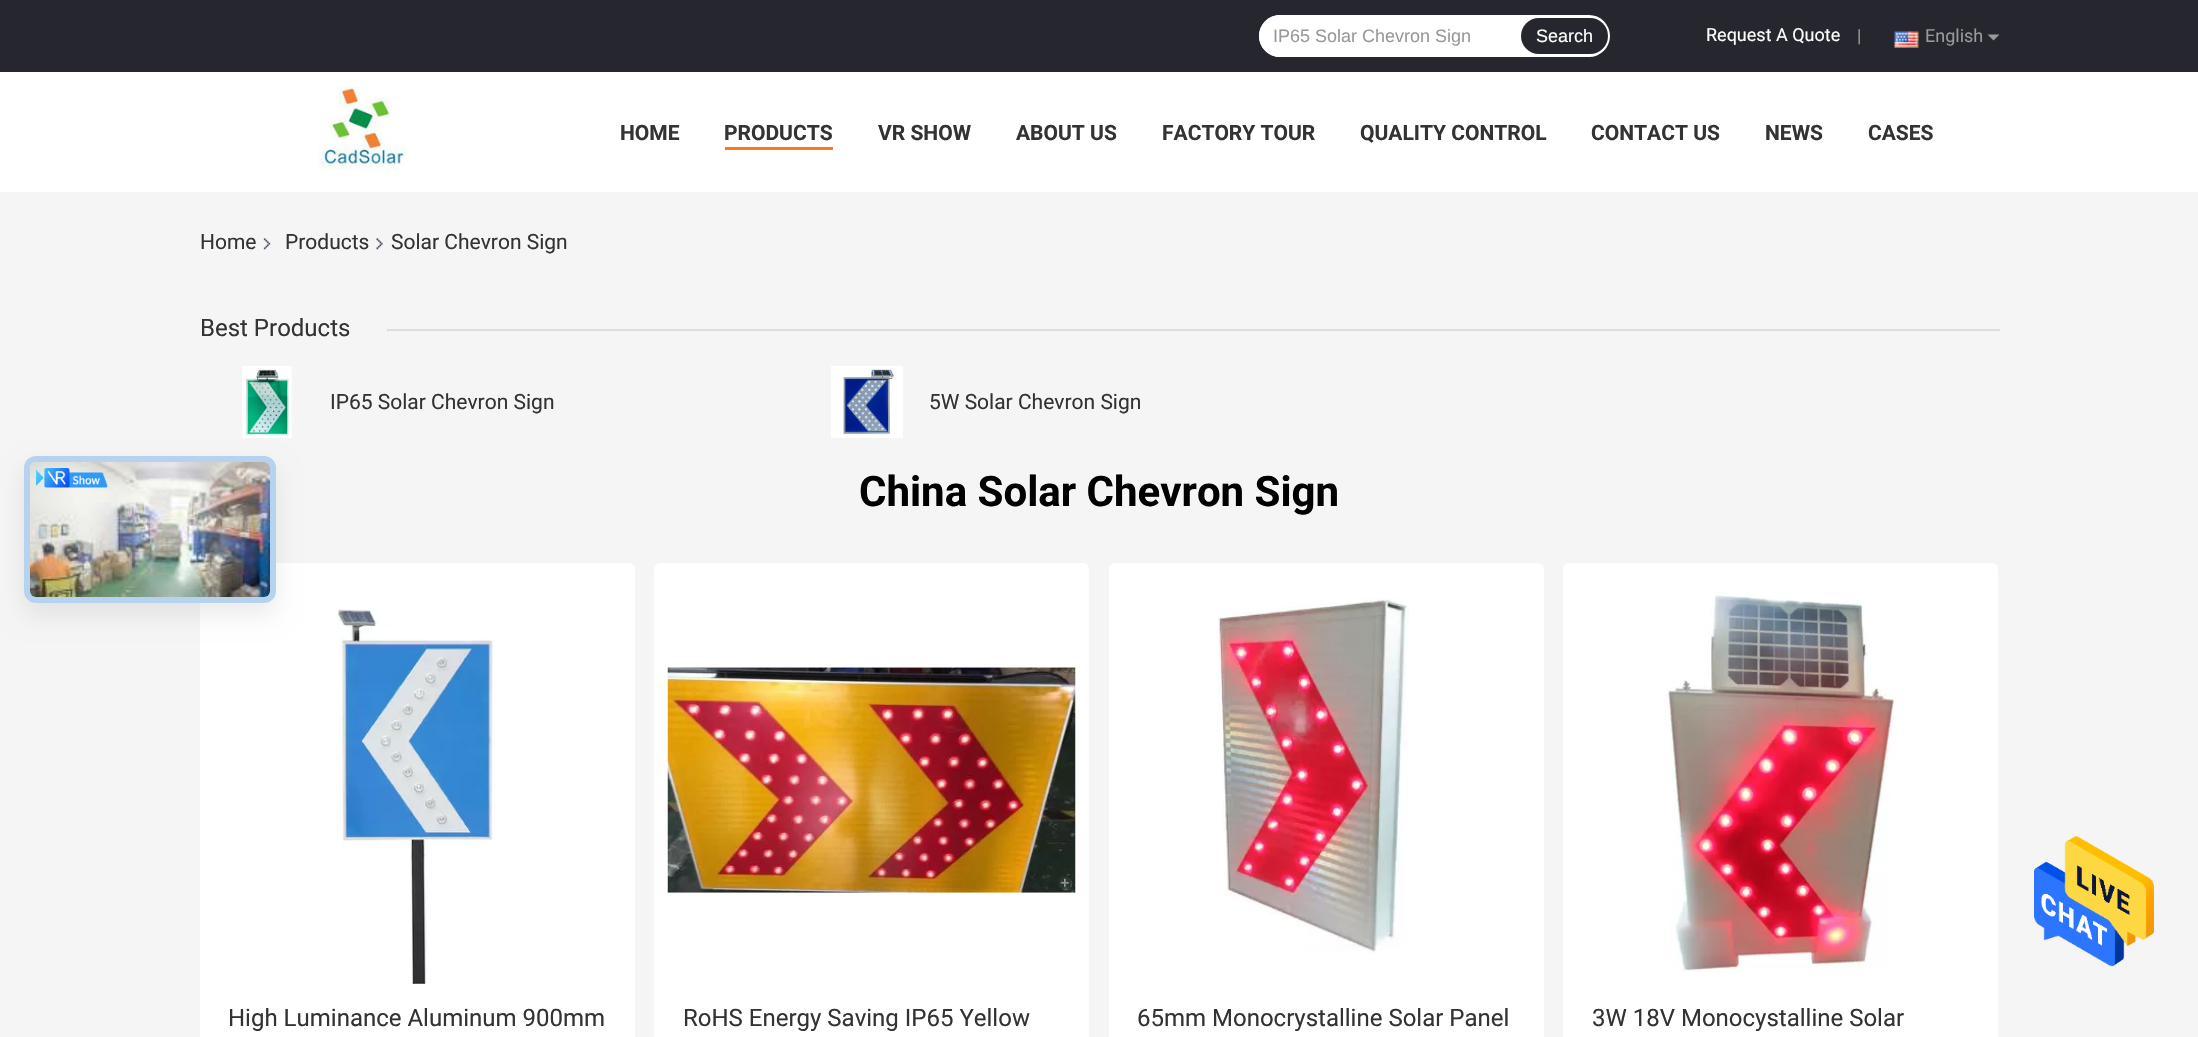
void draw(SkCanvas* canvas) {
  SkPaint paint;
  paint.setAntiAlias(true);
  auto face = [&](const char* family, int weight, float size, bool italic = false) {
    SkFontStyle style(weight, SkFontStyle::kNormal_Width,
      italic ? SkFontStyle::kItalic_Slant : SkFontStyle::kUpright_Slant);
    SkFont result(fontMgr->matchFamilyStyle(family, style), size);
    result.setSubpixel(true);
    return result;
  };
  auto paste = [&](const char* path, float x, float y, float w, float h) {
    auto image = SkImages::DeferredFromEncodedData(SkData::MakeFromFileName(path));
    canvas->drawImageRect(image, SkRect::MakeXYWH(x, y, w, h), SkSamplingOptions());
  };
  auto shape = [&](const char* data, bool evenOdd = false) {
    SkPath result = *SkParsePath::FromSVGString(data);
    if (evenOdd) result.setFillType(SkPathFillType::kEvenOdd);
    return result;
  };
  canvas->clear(0xfff5f5f5);
  paint.setColor(0xffffffff);
  canvas->drawRect(SkRect::MakeXYWH(0, 72, 2198, 120), paint);
  paint.setColor(0xff26262e);
  canvas->drawRect(SkRect::MakeXYWH(0, 0, 2198, 72), paint);
  paint.setColor(0xffffffff);
  canvas->drawRoundRect(SkRect::MakeXYWH(1259, 15, 351, 42), 21, 21, paint);
  canvas->drawPath(shape("M1280 15H1521V57H1280C1268.5 57 1259 47.5 1259 36C1259 24.5 1268.5 15 1280 15Z"), paint);
  paint.setColor(0xff26262e);
  canvas->drawRoundRect(SkRect::MakeXYWH(1521, 18, 87, 36), 18, 18, paint);
  paste("img/1.png", 1894, 31, 25, 17);
  paint.setColor(0xff999999);
  canvas->drawPath(shape("M1987.5 34.5H1999.5L1993.5 40.5Z"), paint);
  paste("img/2.png", 318, 87, 92, 85);
  paint.setColor(0xffff771c);
  canvas->drawRect(SkRect::MakeXYWH(725, 147, 108, 3), paint);
  paste("img/7.png", 242, 366, 50, 72);
  paint.setColor(0xffffffff);
  canvas->drawRoundRect(SkRect::MakeXYWH(200, 563, 435, 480), 6, 6, paint);
  paint.setColor(0x14000000);
  paint.setMaskFilter(SkMaskFilter::MakeBlur(kNormal_SkBlurStyle, 12));
  canvas->drawRoundRect(SkRect::MakeXYWH(24, 468, 252, 147), 12, 12, paint);
  paint.setMaskFilter(nullptr);
  paint.setColor(0xffeeeeee);
  canvas->drawRoundRect(SkRect::MakeXYWH(24, 456, 252, 147), 12, 12, paint);
  paint.setStroke(true);
  paint.setStrokeWidth(6);
  paint.setColor(0x3d0478ed);
  canvas->drawRoundRect(SkRect::MakeXYWH(27, 459, 246, 141), 9, 9, paint);
  paste("img/3.png", 30, 462, 240, 135);
  paste("img/4.png", 36, 468, 72, 20);
  paste("img/5.png", 263, 238, 8, 12);
  paste("img/6.png", 376, 238, 7, 12);
  paint.setStroke(false);
  paint.setColor(0xffdddddd);
  canvas->drawRect(SkRect::MakeXYWH(387, 329, 1613, 2), paint);
  paste("img/8.png", 831, 366, 72, 72);
  paste("img/9.png", 337, 609, 156, 375);
  paint.setColor(0xffffffff);
  canvas->drawRoundRect(SkRect::MakeXYWH(654, 563, 435, 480), 6, 6, paint);
  paste("img/10.png", 667, 667, 409, 226);
  canvas->drawRoundRect(SkRect::MakeXYWH(1109, 563, 435, 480), 6, 6, paint);
  paste("img/11.png", 1217, 598, 192, 356);
  canvas->drawRoundRect(SkRect::MakeXYWH(1563, 563, 435, 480), 6, 6, paint);
  paste("img/12.png", 1666, 592, 229, 380);
  paste("img/13.png", 2034, 836, 120, 131);
  auto f0 = face("Liberation Sans", 400, 18);
  paint.setColor(0xff999999);
  canvas->drawString("IP65 Solar Chevron Sign", 1273, 42, f0, paint);
  paint.setColor(0xffffffff);
  canvas->drawString("Search", 1536, 42, f0, paint);
  auto f1 = face("Roboto", 400, 18);
  canvas->drawString("Request A Quote", 1706, 41, f1, paint);
  paint.setColor(0xff999999);
  canvas->drawString("|", 1857, 42, f1, paint);
  canvas->drawString("English", 1925, 42, f1, paint);
  auto f2 = face("Roboto", 700, 21);
  paint.setColor(0xff333333);
  {
    const struct { const char* s; float x, y; } items[] = {
      {"HOME", 620, 140},
      {"PRODUCTS", 724, 140},
      {"VR SHOW", 878, 140},
      {"ABOUT US", 1016, 140},
      {"FACTORY TOUR", 1162, 140},
      {"QUALITY CONTROL", 1360, 140},
      {"CONTACT US", 1591, 140},
      {"NEWS", 1765, 140},
      {"CASES", 1868, 140},
    };
    for (auto [s, x, y] : items) {
      canvas->drawString(s, x, y, f2, paint);
    }
  }
  auto f3 = face("Roboto", 400, 21);
  {
    const struct { const char* s; float x, y; } items[] = {
      {"Home", 200, 249},
      {"Products", 285, 249},
      {"Solar Chevron Sign", 391, 249},
    };
    for (auto [s, x, y] : items) {
      canvas->drawString(s, x, y, f3, paint);
    }
  }
  auto f4 = face("Roboto", 400, 24);
  canvas->drawString("Best Products", 200, 336, f4, paint);
  canvas->drawString("IP65 Solar Chevron Sign", 330, 409, f3, paint);
  canvas->drawString("5W Solar Chevron Sign", 929, 409, f3, paint);
  auto f5 = face("Roboto", 700, 42);
  paint.setColor(0xff000000);
  canvas->drawString("China Solar Chevron Sign", 859, 506, f5, paint);
  paint.setColor(0xff333333);
  {
    const struct { const char* s; float x, y; } items[] = {
      {"High Luminance Aluminum 900mm", 228, 1026},
      {"RoHS Energy Saving IP65 Yellow", 683, 1026},
      {"65mm Monocrystalline Solar Panel", 1137, 1026},
      {"3W 18V Monocystalline Solar", 1592, 1026},
    };
    for (auto [s, x, y] : items) {
      canvas->drawString(s, x, y, f4, paint);
    }
  }
}
